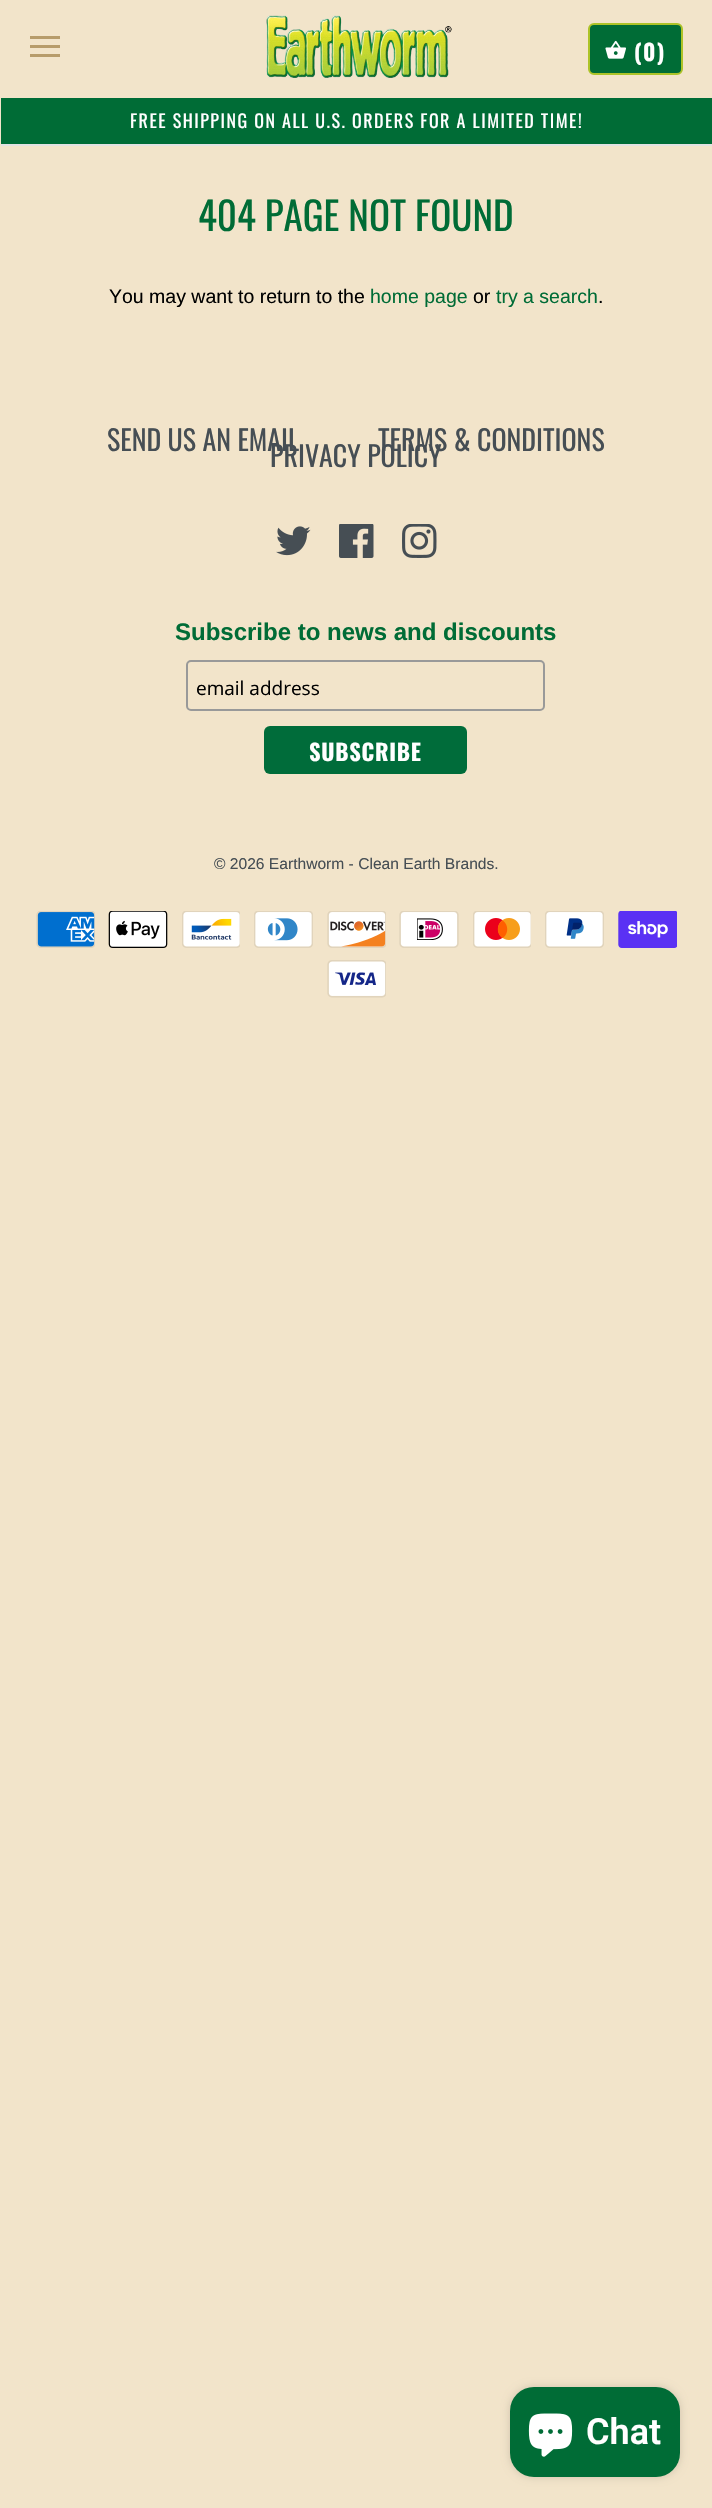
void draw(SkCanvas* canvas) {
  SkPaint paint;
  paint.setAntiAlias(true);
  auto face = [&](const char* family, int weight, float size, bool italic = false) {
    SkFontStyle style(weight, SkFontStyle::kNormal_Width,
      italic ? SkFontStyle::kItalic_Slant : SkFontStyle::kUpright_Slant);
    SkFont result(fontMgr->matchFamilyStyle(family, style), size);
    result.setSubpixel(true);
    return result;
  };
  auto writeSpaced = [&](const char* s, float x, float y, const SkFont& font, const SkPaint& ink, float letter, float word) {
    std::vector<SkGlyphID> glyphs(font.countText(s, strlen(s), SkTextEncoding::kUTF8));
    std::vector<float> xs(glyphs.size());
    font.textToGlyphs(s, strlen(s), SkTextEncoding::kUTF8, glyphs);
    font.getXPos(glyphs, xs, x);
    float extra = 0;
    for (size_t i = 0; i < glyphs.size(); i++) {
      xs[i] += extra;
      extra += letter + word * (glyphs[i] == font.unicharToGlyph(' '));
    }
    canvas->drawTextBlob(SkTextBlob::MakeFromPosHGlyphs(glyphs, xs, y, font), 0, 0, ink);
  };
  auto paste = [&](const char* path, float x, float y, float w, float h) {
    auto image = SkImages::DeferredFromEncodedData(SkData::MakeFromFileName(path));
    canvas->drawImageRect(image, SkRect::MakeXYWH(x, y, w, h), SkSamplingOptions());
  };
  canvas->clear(0xfff2e4ca);
  {
    const struct { float x, y, w, h; SkColor color; } items[] = {
      {30, 36, 30, 3, 0xffb79c6b},
      {30, 45, 30, 3, 0xffb79c6b},
      {30, 54, 30, 3, 0xffb79c6b},
    };
    for (auto [x, y, w, h, color] : items) {
      paint.setColor(color);
      canvas->drawRect(SkRect::MakeXYWH(x, y, w, h), paint);
    }
  }
  paste("img/1.png", 266, 15, 186, 63);
  paint.setColor(0xff006c36);
  canvas->drawRoundRect(SkRect::MakeXYWH(589, 24, 93, 50), 5, 5, paint);
  paint.setStroke(true);
  paint.setStrokeWidth(2);
  paint.setColor(0xffadc328);
  canvas->drawRoundRect(SkRect::MakeXYWH(589, 24, 93, 50), 5, 5, paint);
  paste("img/2.png", 605, 40, 21, 19);
  paint.setStroke(false);
  {
    const struct { float x, y, w, h; SkColor color; } items[] = {
      {1, 98, 711, 46, 0xff006c36},
      {0, 144, 712, 2, 0xffe2e2e2},
      {0, 144, 1, 2, 0xfff2e4ca},
    };
    for (auto [x, y, w, h, color] : items) {
      paint.setColor(color);
      canvas->drawRect(SkRect::MakeXYWH(x, y, w, h), paint);
    }
  }
  paste("img/3.png", 276, 526, 35, 30);
  paste("img/4.png", 339, 524, 35, 34);
  paste("img/5.png", 402, 524, 35, 34);
  paint.setStroke(true);
  paint.setColor(0xff999999);
  canvas->drawRoundRect(SkRect::MakeXYWH(187, 661, 357, 49), 4, 4, paint);
  paint.setStroke(false);
  paint.setColor(0xff006c3a);
  canvas->drawRoundRect(SkRect::MakeXYWH(264, 726, 203, 48), 6, 6, paint);
  paste("img/6.png", 36, 911, 59, 37);
  paste("img/7.png", 108, 911, 60, 37);
  paste("img/8.png", 182, 911, 58, 37);
  paste("img/9.png", 254, 911, 59, 37);
  paste("img/10.png", 327, 911, 59, 37);
  paste("img/11.png", 399, 911, 60, 37);
  paste("img/12.png", 473, 911, 58, 37);
  paste("img/13.png", 545, 911, 59, 37);
  paste("img/14.png", 618, 911, 59, 37);
  paste("img/15.png", 327, 960, 59, 38);
  paint.setColor(0x26000000);
  paint.setMaskFilter(SkMaskFilter::MakeBlur(kNormal_SkBlurStyle, 4));
  canvas->drawRoundRect(SkRect::MakeXYWH(510, 2387, 170, 90), 24, 24, paint);
  paint.setMaskFilter(nullptr);
  paint.setColor(0xff006c36);
  canvas->drawRoundRect(SkRect::MakeXYWH(510, 2387, 170, 90), 24, 24, paint);
  paste("img/16.png", 528, 2413, 45, 44);
  auto f0 = face("Oswald", 700, 22.5f);
  paint.setColor(0xffffffff);
  writeSpaced("(0)", 634, 61, f0, paint, 1.5f, 0);
  auto f1 = face("Oswald", 400, 18);
  writeSpaced("FREE SHIPPING ON ALL U.S. ORDERS FOR A LIMITED TIME!", 130, 128, f1, paint, 1.5f, 0);
  auto f2 = face("Oswald", 400, 39);
  paint.setColor(0xff006c36);
  canvas->drawString("404 PAGE NOT FOUND", 198, 231, f2, paint);
  auto f3 = face("Liberation Sans", 400, 19.5f);
  paint.setColor(0xff000000);
  canvas->drawString("You may want to return to the", 109, 303, f3, paint);
  paint.setColor(0xff006c36);
  canvas->drawString("home page", 370, 303, f3, paint);
  paint.setColor(0xff000000);
  canvas->drawString("or", 473, 303, f3, paint);
  paint.setColor(0xff006c36);
  canvas->drawString("try a search", 496, 303, f3, paint);
  paint.setColor(0xff000000);
  canvas->drawString(".", 598, 303, f3, paint);
  auto f4 = face("Oswald", 400, 28);
  paint.setColor(0xff464e54);
  {
    const struct { const char* s; float x, y; } items[] = {
      {"SEND US AN EMAIL", 107, 451},
      {"TERMS & CONDITIONS", 378, 451},
      {"PRIVACY POLICY", 270, 467},
    };
    for (auto [s, x, y] : items) {
      canvas->drawString(s, x, y, f4, paint);
    }
  }
  auto f5 = face("Liberation Sans", 700, 24);
  paint.setColor(0xff006c36);
  canvas->drawString("Subscribe to news and discounts", 175, 640, f5, paint);
  auto f6 = face("Open Sans", 400, 19);
  paint.setColor(0xff000000);
  canvas->drawString("email address", 196, 695, f6, paint);
  paint.setColor(0xffffffff);
  writeSpaced("SUBSCRIBE", 309, 761, f0, paint, 0.75f, 0);
  auto f7 = face("Liberation Sans", 400, 15.6f);
  paint.setColor(0xff464e54);
  canvas->drawString("© 2026 Earthworm - Clean Earth Brands.", 214, 869, f7, paint);
  auto f8 = face("Roboto", 600, 36);
  paint.setColor(0xffffffff);
  canvas->drawString("Chat", 586, 2444, f8, paint);
}
